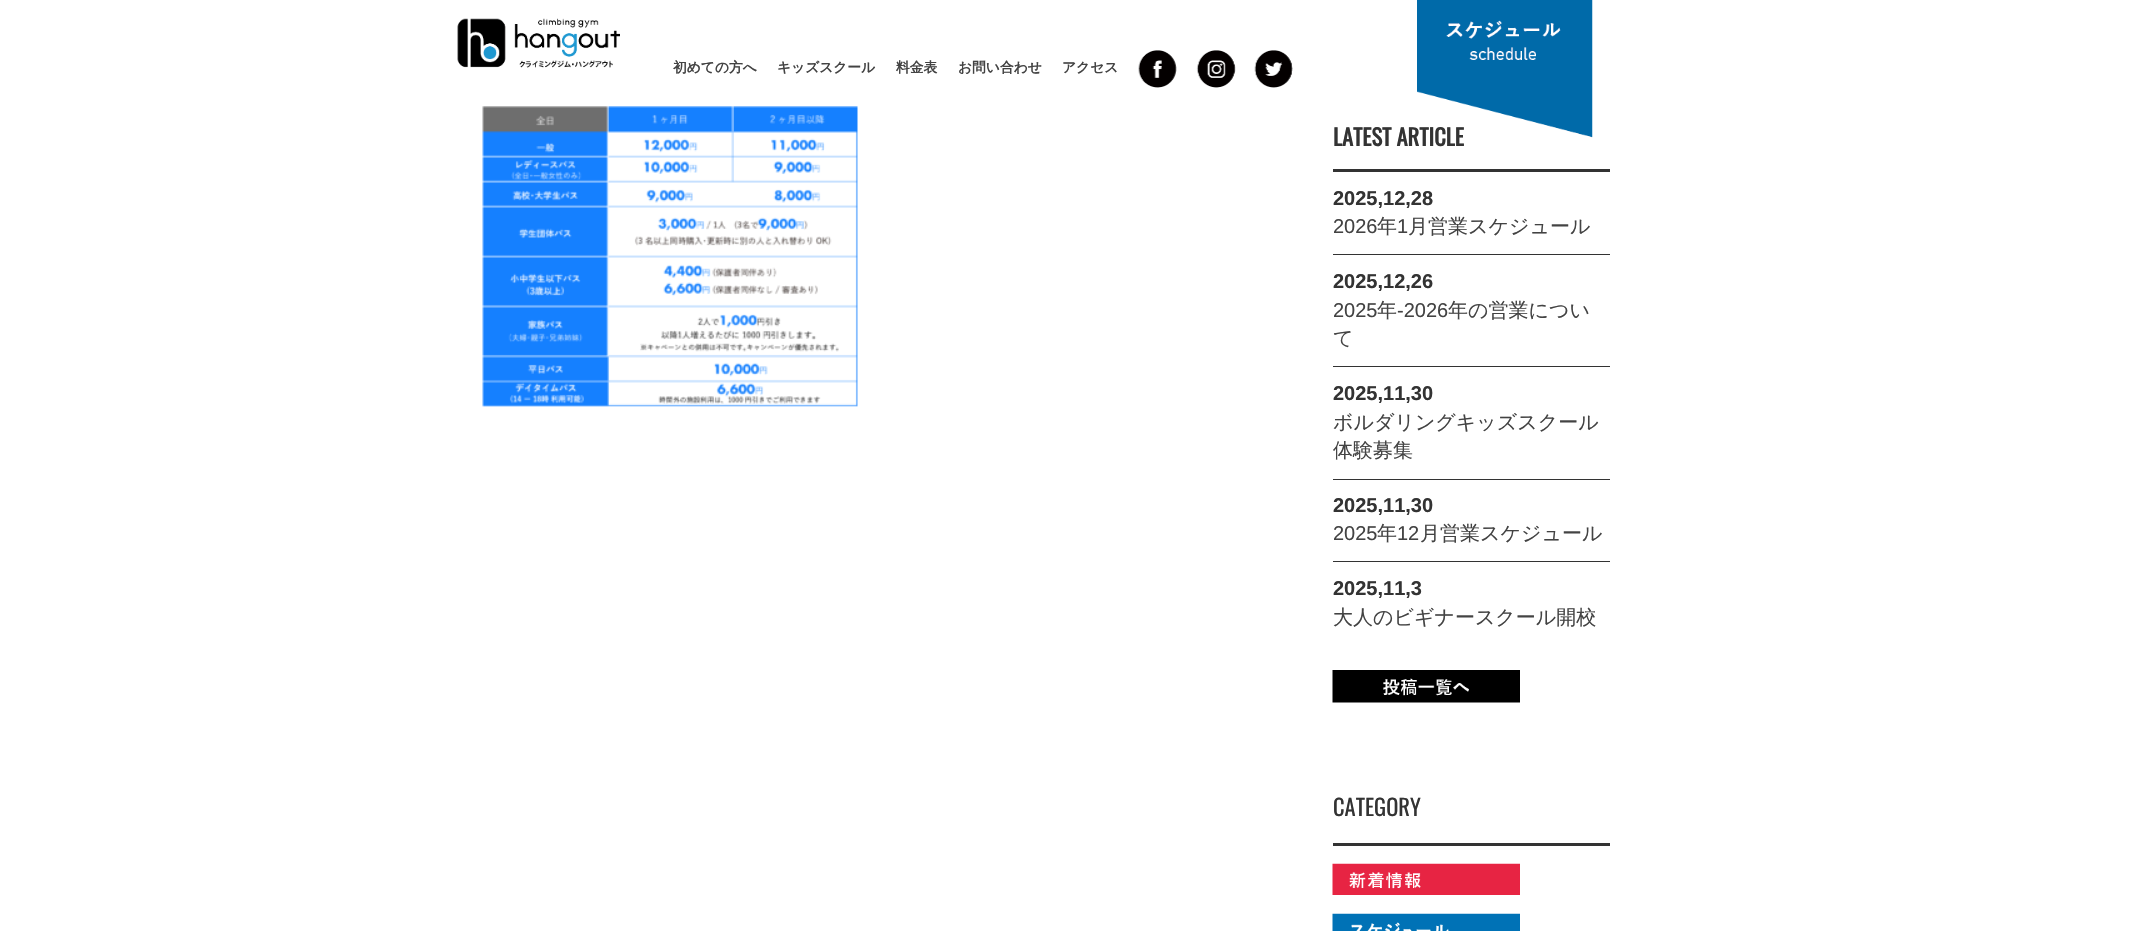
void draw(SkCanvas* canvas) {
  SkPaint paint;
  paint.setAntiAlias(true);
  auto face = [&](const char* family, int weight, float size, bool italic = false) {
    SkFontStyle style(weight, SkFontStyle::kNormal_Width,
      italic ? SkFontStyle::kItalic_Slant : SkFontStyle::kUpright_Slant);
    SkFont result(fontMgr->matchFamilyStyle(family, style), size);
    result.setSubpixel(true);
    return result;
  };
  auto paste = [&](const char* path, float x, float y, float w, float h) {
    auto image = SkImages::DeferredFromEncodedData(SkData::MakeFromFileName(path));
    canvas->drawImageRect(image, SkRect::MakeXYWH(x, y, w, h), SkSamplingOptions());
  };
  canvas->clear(0xffffffff);
  paste("img/1.png", 457, 18, 163, 50);
  paste("img/2.png", 1138, 50, 39, 38);
  paste("img/3.png", 1196, 50, 40, 38);
  paste("img/4.png", 1254, 50, 39, 38);
  paste("img/6.png", 482, 106, 376, 301);
  {
    const struct { float x, y, w, h; SkColor color; } items[] = {
      {1333, 169, 277, 3, 0xff333333},
      {1333, 254, 277, 1, 0xff333333},
      {1333, 366, 277, 1, 0xff333333},
      {1333, 479, 277, 1, 0xff333333},
      {1333, 561, 277, 1, 0xff333333},
    };
    for (auto [x, y, w, h, color] : items) {
      paint.setColor(color);
      canvas->drawRect(SkRect::MakeXYWH(x, y, w, h), paint);
    }
  }
  paste("img/7.png", 1332, 670, 188, 33);
  canvas->drawRect(SkRect::MakeXYWH(1333, 843, 277, 3), paint);
  paste("img/8.png", 1332, 863, 188, 32);
  paste("img/9.png", 1332, 913, 188, 18);
  auto f0 = face("WenQuanYi Zen Hei", 700, 13.75f);
  paint.setColor(0xff434343);
  {
    const struct { const char* s; float x, y; } items[] = {
      {"初めての方へ", 673, 72},
      {"キッズスクール", 777, 72},
      {"料金表", 896, 72},
      {"お問い合わせ", 958, 72},
      {"アクセス", 1062, 72},
    };
    for (auto [s, x, y] : items) {
      canvas->drawString(s, x, y, f0, paint);
    }
  }
  auto f1 = face("Oswald", 700, 22.5f);
  paint.setColor(0xff333333);
  canvas->drawString("LATEST ARTICLE", 1333, 146, f1, paint);
  paste("img/5.png", 1417, 0, 176, 138);
  auto f2 = face("Liberation Sans", 700, 20);
  canvas->drawString("2025,12,28", 1333, 205, f2, paint);
  auto f3 = face("Liberation Sans", 400, 20);
  paint.setColor(0xff434343);
  canvas->drawString("2026", 1333, 233, f3, paint);
  auto f4 = face("WenQuanYi Zen Hei", 500, 20);
  canvas->drawString("年", 1377, 233, f4, paint);
  canvas->drawString("1", 1397, 233, f3, paint);
  canvas->drawString("月営業スケジュール", 1408, 233, f4, paint);
  paint.setColor(0xff333333);
  canvas->drawString("2025,12,26", 1333, 288, f2, paint);
  paint.setColor(0xff434343);
  canvas->drawString("2025", 1333, 317, f3, paint);
  canvas->drawString("年", 1377, 317, f4, paint);
  canvas->drawString("-2026", 1397, 317, f3, paint);
  canvas->drawString("年の営業につい", 1448, 317, f4, paint);
  canvas->drawString("て", 1333, 345, f4, paint);
  paint.setColor(0xff333333);
  canvas->drawString("2025,11,30", 1333, 400, f2, paint);
  paint.setColor(0xff434343);
  canvas->drawString("ボルダリングキッズスクール", 1333, 429, f4, paint);
  canvas->drawString("体験募集", 1333, 457, f4, paint);
  paint.setColor(0xff333333);
  canvas->drawString("2025,11,30", 1333, 512, f2, paint);
  paint.setColor(0xff434343);
  canvas->drawString("2025", 1333, 540, f3, paint);
  canvas->drawString("年", 1377, 540, f4, paint);
  canvas->drawString("12", 1397, 540, f3, paint);
  canvas->drawString("月営業スケジュール", 1420, 540, f4, paint);
  paint.setColor(0xff333333);
  canvas->drawString("2025,11,3", 1333, 595, f2, paint);
  paint.setColor(0xff434343);
  canvas->drawString("大人のビギナースクール開校", 1333, 624, f4, paint);
  auto f5 = face("Oswald", 400, 22.5f);
  paint.setColor(0xff333333);
  canvas->drawString("CATEGORY", 1333, 816, f5, paint);
}
